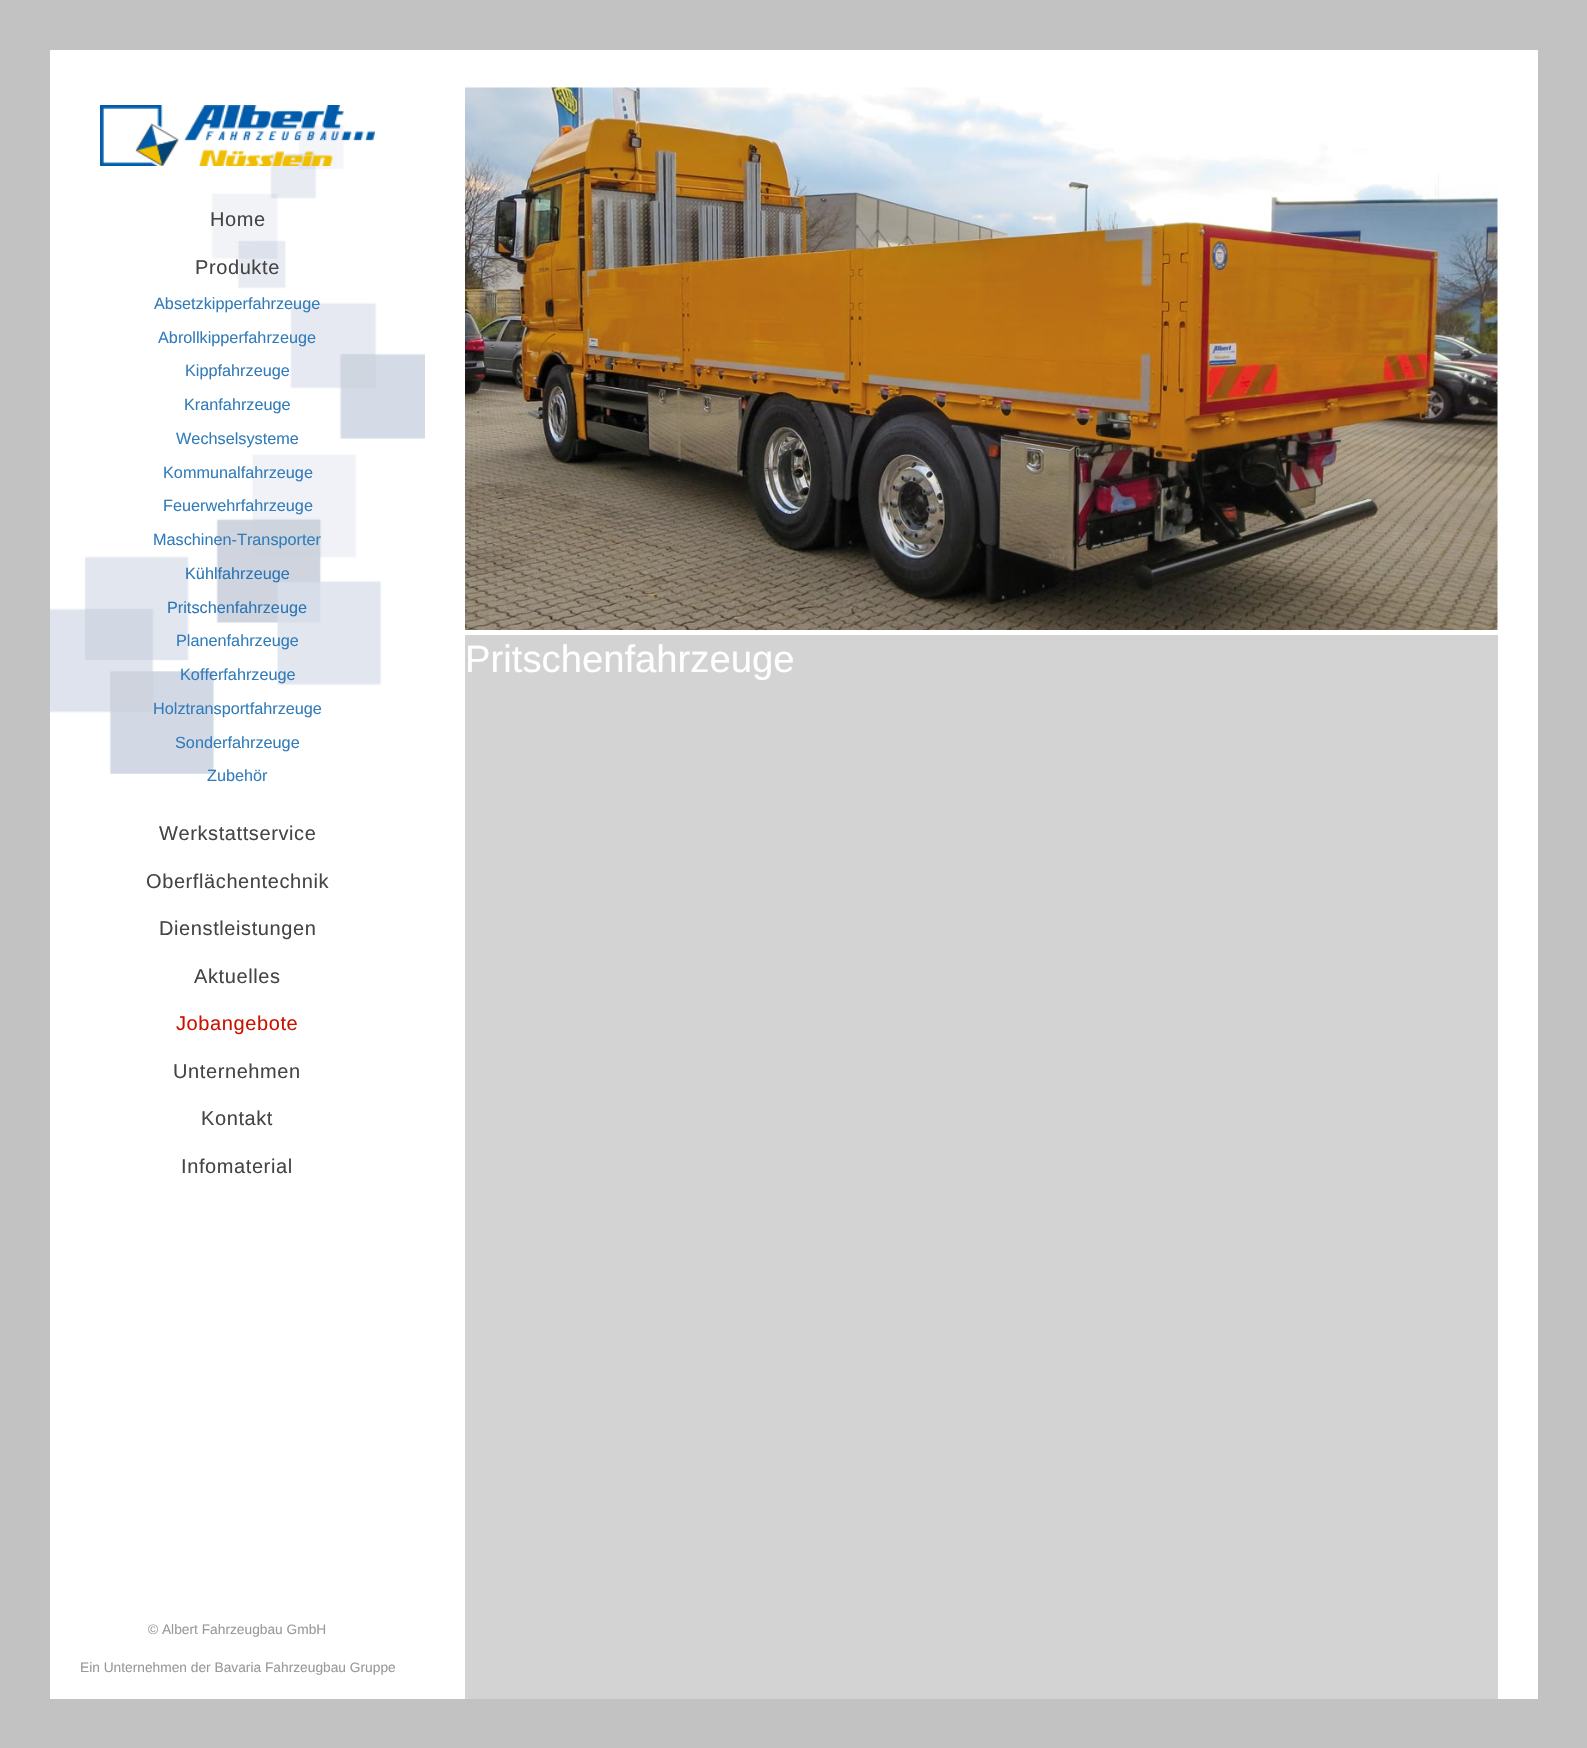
void draw(SkCanvas* canvas) {
  SkPaint paint;
  paint.setAntiAlias(true);
  auto face = [&](const char* family, int weight, float size, bool italic = false) {
    SkFontStyle style(weight, SkFontStyle::kNormal_Width,
      italic ? SkFontStyle::kItalic_Slant : SkFontStyle::kUpright_Slant);
    SkFont result(fontMgr->matchFamilyStyle(family, style), size);
    result.setSubpixel(true);
    return result;
  };
  auto writeSpaced = [&](const char* s, float x, float y, const SkFont& font, const SkPaint& ink, float letter, float word) {
    std::vector<SkGlyphID> glyphs(font.countText(s, strlen(s), SkTextEncoding::kUTF8));
    std::vector<float> xs(glyphs.size());
    font.textToGlyphs(s, strlen(s), SkTextEncoding::kUTF8, glyphs);
    font.getXPos(glyphs, xs, x);
    float extra = 0;
    for (size_t i = 0; i < glyphs.size(); i++) {
      xs[i] += extra;
      extra += letter + word * (glyphs[i] == font.unicharToGlyph(' '));
    }
    canvas->drawTextBlob(SkTextBlob::MakeFromPosHGlyphs(glyphs, xs, y, font), 0, 0, ink);
  };
  auto paste = [&](const char* path, float x, float y, float w, float h) {
    auto image = SkImages::DeferredFromEncodedData(SkData::MakeFromFileName(path));
    canvas->drawImageRect(image, SkRect::MakeXYWH(x, y, w, h), SkSamplingOptions());
  };
  canvas->clear(0xffc2c2c2);
  paint.setColor(0xffffffff);
  canvas->drawRect(SkRect::MakeXYWH(50, 50, 1488, 1649), paint);
  paste("img/1.png", 50, 125, 375, 649);
  paste("img/2.png", 100, 105, 275, 61);
  paint.setColor(0x33ffffff);
  canvas->drawRect(SkRect::MakeXYWH(225, 244, 25, 1), paint);
  paste("img/3.png", 465, 87, 1033, 543);
  paint.setColor(0xffd3d3d3);
  canvas->drawRect(SkRect::MakeXYWH(465, 635, 1033, 1064), paint);
  auto f0 = face("Liberation Sans", 400, 20);
  paint.setColor(0xff454545);
  writeSpaced("Home", 210, 226, f0, paint, 0.6f, 0);
  writeSpaced("Produkte", 195, 274, f0, paint, 0.6f, 0);
  auto f1 = face("Liberation Sans", 400, 16.25f);
  paint.setColor(0xff327cbb);
  {
    const struct { const char* s; float x, y; } items[] = {
      {"Absetzkipperfahrzeuge", 154, 309},
      {"Abrollkipperfahrzeuge", 158, 343},
      {"Kippfahrzeuge", 185, 376},
      {"Kranfahrzeuge", 184, 410},
      {"Wechselsysteme", 176, 444},
      {"Kommunalfahrzeuge", 163, 478},
      {"Feuerwehrfahrzeuge", 163, 511},
      {"Maschinen-Transporter", 153, 545},
    };
    for (auto [s, x, y] : items) {
      canvas->drawString(s, x, y, f1, paint);
    }
  }
  paint.setColor(0xff2c76b6);
  canvas->drawString("Kühlfahrzeuge", 185, 579, f1, paint);
  canvas->drawString("Pritschenfahrzeuge", 167, 613, f1, paint);
  paint.setColor(0xff327cbb);
  {
    const struct { const char* s; float x, y; } items[] = {
      {"Planenfahrzeuge", 176, 646},
      {"Kofferfahrzeuge", 180, 680},
      {"Holztransportfahrzeuge", 153, 714},
      {"Sonderfahrzeuge", 175, 748},
      {"Zubehör", 207, 781},
    };
    for (auto [s, x, y] : items) {
      canvas->drawString(s, x, y, f1, paint);
    }
  }
  paint.setColor(0xff454545);
  {
    const struct { const char* s; float x, y; } items[] = {
      {"Werkstattservice", 159, 840},
      {"Oberflächentechnik", 146, 888},
      {"Dienstleistungen", 159, 935},
      {"Aktuelles", 194, 983},
    };
    for (auto [s, x, y] : items) {
      writeSpaced(s, x, y, f0, paint, 0.6f, 0);
    }
  }
  paint.setColor(0xffc81300);
  writeSpaced("Jobangebote", 176, 1030, f0, paint, 0.6f, 0);
  paint.setColor(0xff454545);
  {
    const struct { const char* s; float x, y; } items[] = {
      {"Unternehmen", 173, 1078},
      {"Kontakt", 201, 1125},
      {"Infomaterial", 181, 1173},
    };
    for (auto [s, x, y] : items) {
      writeSpaced(s, x, y, f0, paint, 0.6f, 0);
    }
  }
  auto f2 = face("Liberation Sans", 400, 13.75f);
  paint.setColor(0xff999999);
  canvas->drawString("© Albert Fahrzeugbau GmbH", 148, 1634, f2, paint);
  canvas->drawString("Ein Unternehmen der Bavaria Fahrzeugbau Gruppe", 80, 1672, f2, paint);
  auto f3 = face("Liberation Sans", 400, 38.25f);
  paint.setColor(0xffffffff);
  canvas->drawString("Pritschenfahrzeuge", 465, 672, f3, paint);
}
